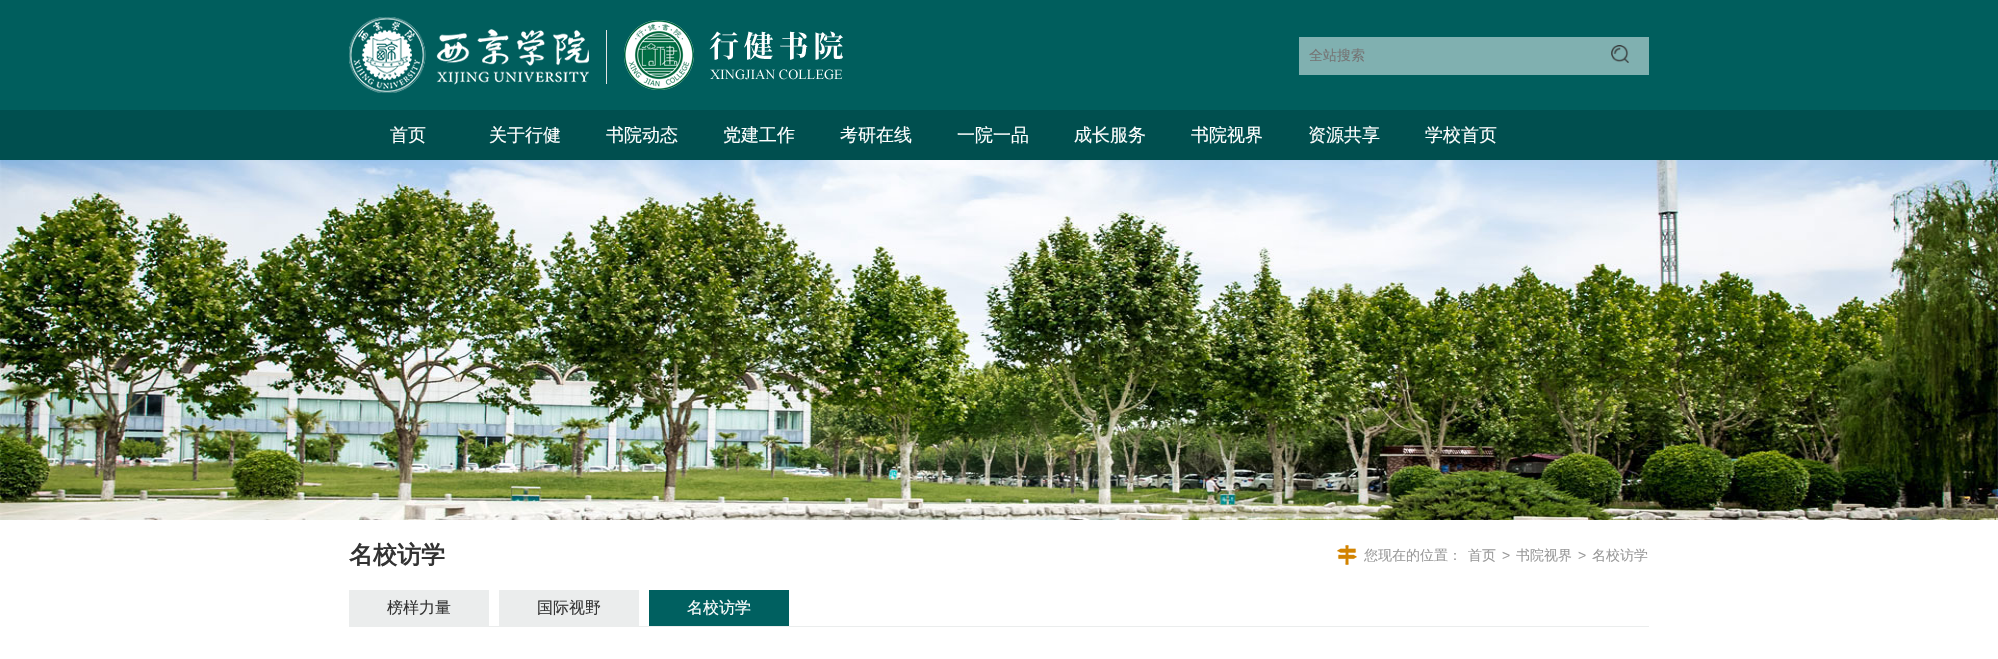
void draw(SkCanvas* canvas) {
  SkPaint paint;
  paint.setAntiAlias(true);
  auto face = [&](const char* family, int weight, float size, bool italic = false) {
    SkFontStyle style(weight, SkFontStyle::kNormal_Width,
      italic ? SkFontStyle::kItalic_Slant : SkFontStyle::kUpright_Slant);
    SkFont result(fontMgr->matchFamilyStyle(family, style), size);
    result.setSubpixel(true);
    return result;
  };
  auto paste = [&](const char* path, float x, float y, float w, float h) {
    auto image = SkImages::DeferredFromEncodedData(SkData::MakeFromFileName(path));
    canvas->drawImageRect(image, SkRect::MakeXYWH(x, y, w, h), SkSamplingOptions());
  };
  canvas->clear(0xffffffff);
  paint.setColor(0xff005e5d);
  canvas->drawRect(SkRect::MakeXYWH(0, 0, 1998, 110), paint);
  paste("img/1.png", 349, 17, 494, 76);
  paint.setColor(0xff80b0b0);
  canvas->drawRect(SkRect::MakeXYWH(1299, 37, 350, 38), paint);
  paste("img/2.png", 1611, 45, 18, 18);
  paint.setColor(0xff004f4f);
  canvas->drawRect(SkRect::MakeXYWH(0, 110, 1998, 50), paint);
  paste("img/3.png", 0, 160, 1998, 360);
  paste("img/4.png", 1337, 545, 20, 20);
  {
    const struct { float x, y, w, h; SkColor color; } items[] = {
      {349, 626, 1300, 1, 0xffebeded},
      {349, 590, 140, 36, 0xffebeded},
      {499, 590, 140, 36, 0xffebeded},
      {649, 590, 140, 36, 0xff006060},
    };
    for (auto [x, y, w, h, color] : items) {
      paint.setColor(color);
      canvas->drawRect(SkRect::MakeXYWH(x, y, w, h), paint);
    }
  }
  auto f0 = face("WenQuanYi Zen Hei", 500, 14);
  paint.setColor(0xff757575);
  canvas->drawString("全站搜索", 1309, 60, f0, paint);
  auto f1 = face("WenQuanYi Zen Hei", 500, 18);
  paint.setColor(0xffffffff);
  {
    const struct { const char* s; float x, y; } items[] = {
      {"首页", 390, 141},
      {"关于行健", 489, 141},
      {"书院动态", 606, 141},
      {"党建工作", 723, 141},
      {"考研在线", 840, 141},
      {"一院一品", 957, 141},
      {"成长服务", 1074, 141},
      {"书院视界", 1191, 141},
      {"资源共享", 1308, 141},
      {"学校首页", 1425, 141},
    };
    for (auto [s, x, y] : items) {
      canvas->drawString(s, x, y, f1, paint);
    }
  }
  auto f2 = face("WenQuanYi Zen Hei", 700, 24);
  paint.setColor(0xff333333);
  canvas->drawString("名校访学", 349, 563, f2, paint);
  paint.setColor(0xff999999);
  canvas->drawString("您现在的位置：", 1364, 560, f0, paint);
  canvas->drawString("首页", 1468, 560, f0, paint);
  auto f3 = face("Liberation Sans", 400, 14);
  canvas->drawString(">", 1502, 560, f3, paint);
  canvas->drawString("书院视界", 1516, 560, f0, paint);
  canvas->drawString(">", 1578, 560, f3, paint);
  canvas->drawString("名校访学", 1592, 560, f0, paint);
  auto f4 = face("WenQuanYi Zen Hei", 500, 16);
  paint.setColor(0xff333333);
  canvas->drawString("榜样力量", 387, 613, f4, paint);
  canvas->drawString("国际视野", 537, 613, f4, paint);
  paint.setColor(0xffffffff);
  canvas->drawString("名校访学", 687, 613, f4, paint);
}
